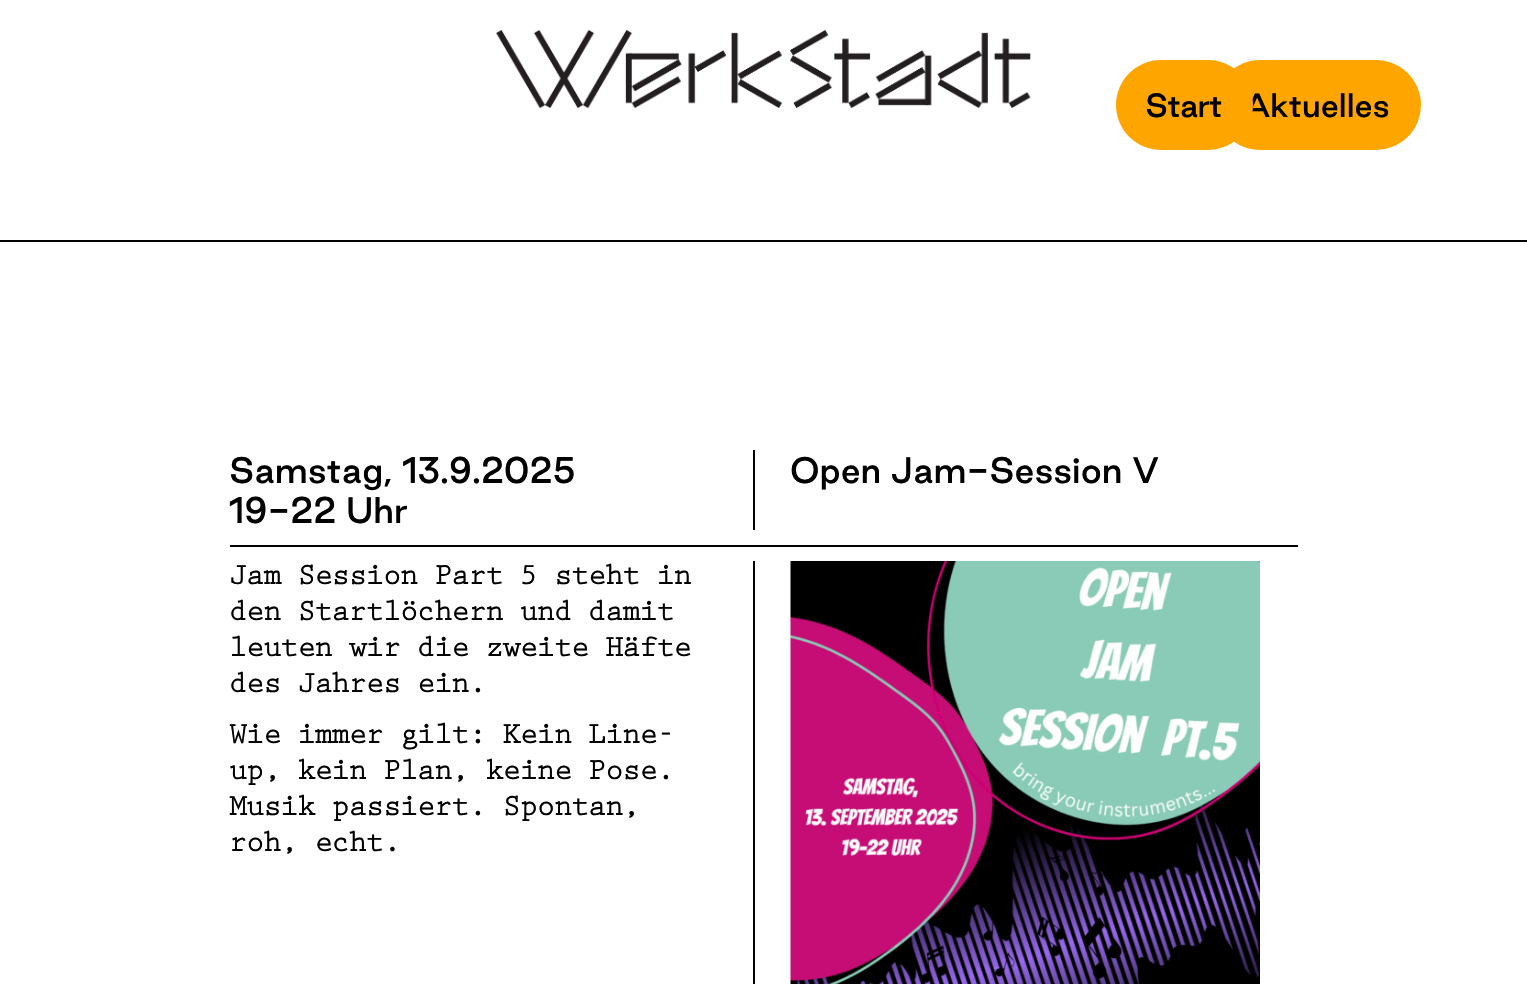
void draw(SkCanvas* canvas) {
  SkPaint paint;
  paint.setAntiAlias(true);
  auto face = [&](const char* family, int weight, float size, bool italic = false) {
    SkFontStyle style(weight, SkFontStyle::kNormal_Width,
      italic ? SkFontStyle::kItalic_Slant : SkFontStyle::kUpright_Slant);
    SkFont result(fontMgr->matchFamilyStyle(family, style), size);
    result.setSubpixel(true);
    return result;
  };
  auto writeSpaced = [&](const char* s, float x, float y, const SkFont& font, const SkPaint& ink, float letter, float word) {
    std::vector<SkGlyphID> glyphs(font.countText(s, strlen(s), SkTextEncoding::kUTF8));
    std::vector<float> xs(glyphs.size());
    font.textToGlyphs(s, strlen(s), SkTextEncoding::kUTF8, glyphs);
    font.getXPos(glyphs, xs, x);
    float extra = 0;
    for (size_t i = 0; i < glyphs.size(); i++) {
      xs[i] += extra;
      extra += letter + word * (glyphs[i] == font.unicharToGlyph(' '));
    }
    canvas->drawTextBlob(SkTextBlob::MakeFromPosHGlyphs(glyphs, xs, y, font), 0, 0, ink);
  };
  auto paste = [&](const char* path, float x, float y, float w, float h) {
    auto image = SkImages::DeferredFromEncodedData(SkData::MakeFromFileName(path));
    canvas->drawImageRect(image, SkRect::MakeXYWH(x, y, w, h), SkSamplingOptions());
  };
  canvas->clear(0xffffffff);
  paste("img/1.png", 496, 30, 535, 78);
  paint.setColor(0xffffa500);
  canvas->drawRoundRect(SkRect::MakeXYWH(1215, 60, 206, 90), 45, 45, paint);
  {
    const struct { float x, y, w, h; SkColor color; } items[] = {
      {0, 240, 1527, 2, 0xff000000},
      {753, 450, 2, 80, 0xff000000},
      {230, 545, 1068, 2, 0xff000000},
      {753, 561, 2, 423, 0xff000000},
    };
    for (auto [x, y, w, h, color] : items) {
      paint.setColor(color);
      canvas->drawRect(SkRect::MakeXYWH(x, y, w, h), paint);
    }
  }
  paste("img/2.png", 790, 561, 470, 423);
  auto f0 = face("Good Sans", 500, 30);
  canvas->drawString("Aktuelles", 1244, 117, f0, paint);
  paint.setColor(0xffffa500);
  canvas->drawRoundRect(SkRect::MakeXYWH(1116, 60, 137, 90), 45, 45, paint);
  paint.setColor(0xff000000);
  writeSpaced("Start", 1145, 117, f0, paint, -0.9f, 0);
  auto f1 = face("Good Sans", 500, 33);
  {
    const struct { const char* s; float x, y; } items[] = {
      {"Samstag, 13.9.2025", 229, 483},
      {"19-22 Uhr", 229, 523},
      {"Open Jam-Session V", 790, 483},
    };
    for (auto [s, x, y] : items) {
      canvas->drawString(s, x, y, f1, paint);
    }
  }
  auto f2 = face("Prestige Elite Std", 700, 30);
  {
    const struct { const char* s; float x, y; } items[] = {
      {"Jam Session Part 5 steht in", 229, 584},
      {"den Startlöchern und damit", 229, 620},
      {"leuten wir die zweite Häfte", 229, 656},
      {"des Jahres ein.", 229, 692},
      {"Wie immer gilt: Kein Line-", 229, 743},
      {"up, kein Plan, keine Pose.", 229, 779},
      {"Musik passiert. Spontan,", 229, 815},
      {"roh, echt.", 229, 851},
    };
    for (auto [s, x, y] : items) {
      writeSpaced(s, x, y, f2, paint, -0.9f, 0);
    }
  }
}
